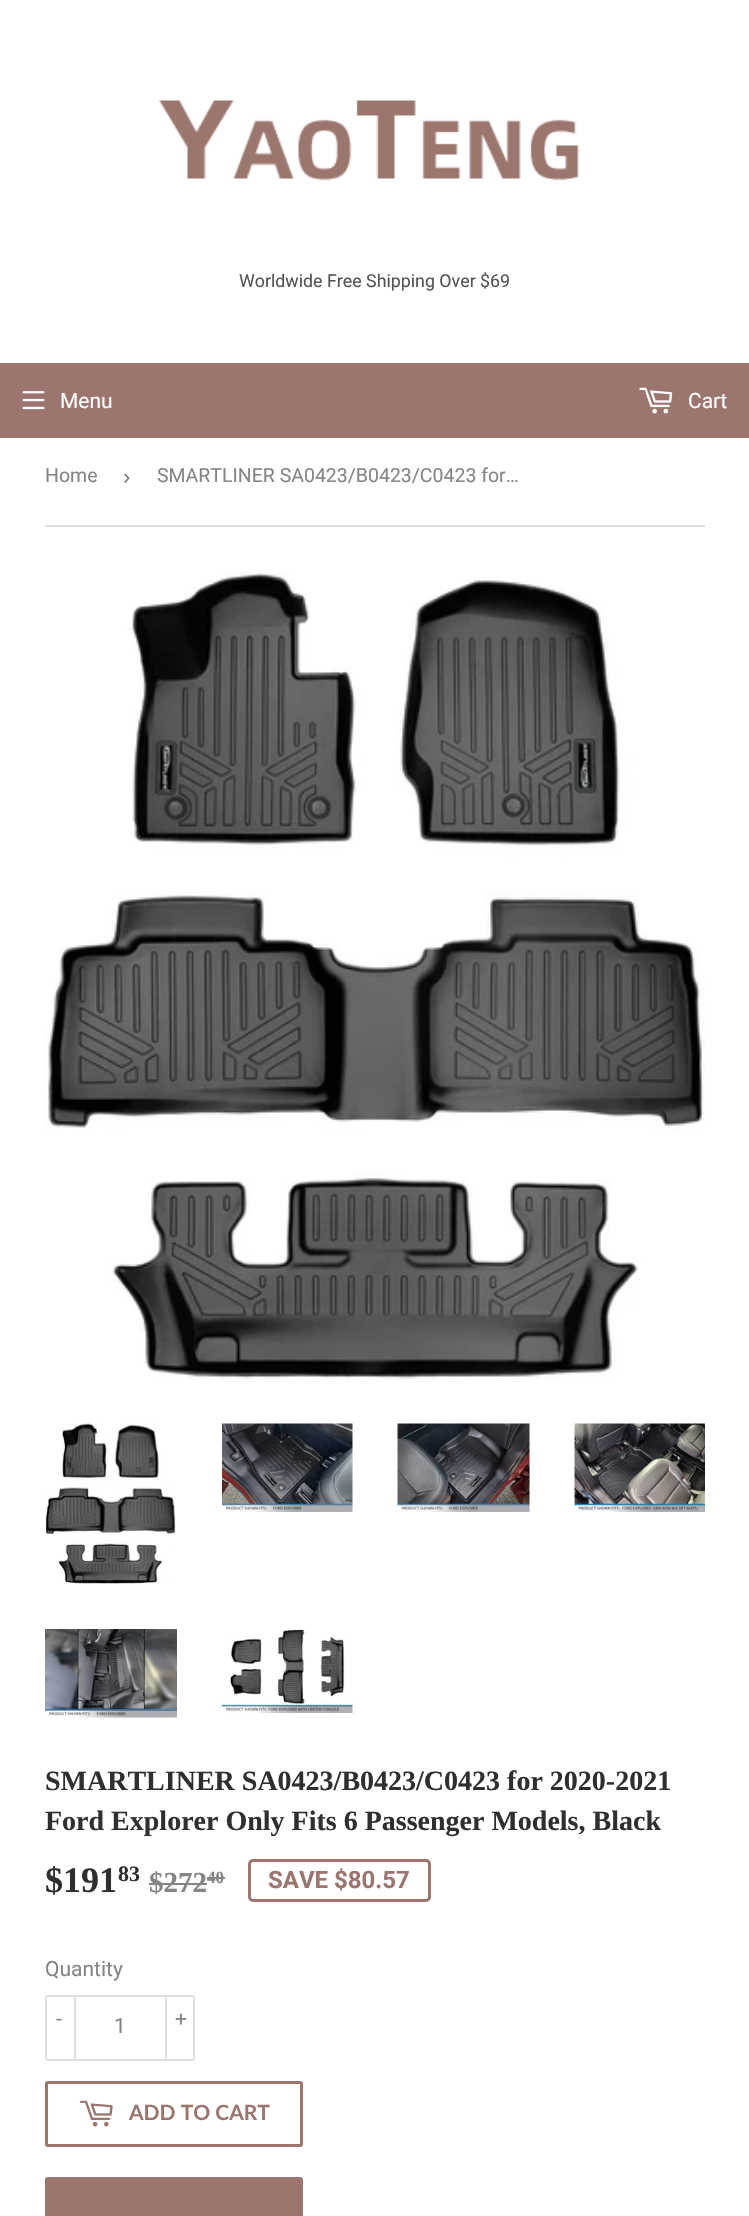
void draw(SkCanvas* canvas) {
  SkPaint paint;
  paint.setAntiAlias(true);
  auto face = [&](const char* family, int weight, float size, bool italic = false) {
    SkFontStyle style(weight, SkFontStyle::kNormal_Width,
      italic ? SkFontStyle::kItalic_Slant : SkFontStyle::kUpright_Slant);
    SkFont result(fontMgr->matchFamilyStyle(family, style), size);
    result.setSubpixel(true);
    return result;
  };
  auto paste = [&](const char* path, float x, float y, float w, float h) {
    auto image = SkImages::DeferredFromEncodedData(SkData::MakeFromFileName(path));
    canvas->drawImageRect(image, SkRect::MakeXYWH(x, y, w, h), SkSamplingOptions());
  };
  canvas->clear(0xffffffff);
  paste("img/1.png", 158, 100, 422, 81);
  paint.setColor(0xff9c756f);
  canvas->drawRect(SkRect::MakeXYWH(0, 363, 749, 75), paint);
  paste("img/2.png", 22, 391, 23, 19);
  paste("img/3.png", 639, 387, 34, 27);
  paint.setColor(0xffdedede);
  canvas->drawRect(SkRect::MakeXYWH(45, 525, 660, 2), paint);
  paste("img/4.png", 45, 572, 660, 807);
  paste("img/5.png", 45, 1423, 131, 161);
  paste("img/6.png", 222, 1423, 131, 89);
  paste("img/7.png", 397, 1423, 133, 89);
  paste("img/8.png", 574, 1423, 131, 89);
  paste("img/9.png", 45, 1629, 132, 89);
  paste("img/10.png", 222, 1629, 131, 84);
  paint.setColor(0xff858585);
  canvas->drawRect(SkRect::MakeXYWH(149, 1883, 58, 2), paint);
  canvas->drawRect(SkRect::MakeXYWH(207, 1877, 18, 2), paint);
  paint.setStroke(true);
  paint.setStrokeWidth(3);
  paint.setColor(0xff9c756f);
  canvas->drawRoundRect(SkRect::MakeXYWH(249.5f, 1860.5f, 180, 40), 3.5f, 3.5f, paint);
  paint.setStrokeWidth(2);
  paint.setColor(0xffdedede);
  canvas->drawRoundRect(SkRect::MakeXYWH(46, 1996, 148, 64), 2, 2, paint);
  paint.setStroke(false);
  canvas->drawRect(SkRect::MakeXYWH(74, 1995, 2, 66), paint);
  canvas->drawRect(SkRect::MakeXYWH(165, 1995, 2, 66), paint);
  paint.setStroke(true);
  paint.setStrokeWidth(3);
  paint.setColor(0xff9c756f);
  canvas->drawRoundRect(SkRect::MakeXYWH(46.5f, 2082.5f, 255, 63), 1.5f, 1.5f, paint);
  paste("img/11.png", 79, 2100, 34, 27);
  paint.setStroke(false);
  canvas->drawRoundRect(SkRect::MakeXYWH(45, 2177, 258, 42), 3, 3, paint);
  auto f0 = face("Roboto", 400, 17.8f);
  paint.setColor(0xff545454);
  canvas->drawString("Worldwide Free Shipping Over $69", 239, 287, f0, paint);
  auto f1 = face("Roboto", 400, 21);
  paint.setColor(0xffffffff);
  canvas->drawString("Menu", 60, 408, f1, paint);
  canvas->drawString("Cart", 688, 408, f1, paint);
  auto f2 = face("Roboto", 400, 19.5f);
  paint.setColor(0xff858585);
  canvas->drawString("Home", 45, 482, f2, paint);
  auto f3 = face("Liberation Sans", 400, 22);
  paint.setColor(0xff767676);
  canvas->drawString("›", 123, 484, f3, paint);
  paint.setColor(0xff858585);
  canvas->drawString("SMARTLINER SA0423/B0423/C0423 for…", 157, 482, f2, paint);
  auto f4 = face("Liberation Serif", 700, 28);
  paint.setColor(0xff2f2f2f);
  canvas->drawString("SMARTLINER SA0423/B0423/C0423 for 2020-2021", 45, 1790, f4, paint);
  canvas->drawString("Ford Explorer Only Fits 6 Passenger Models, Black", 45, 1830, f4, paint);
  auto f5 = face("Liberation Serif", 700, 36);
  canvas->drawString("$191", 45, 1892, f5, paint);
  auto f6 = face("Liberation Serif", 700, 22);
  canvas->drawString("83", 118, 1881, f6, paint);
  auto f7 = face("Liberation Serif", 700, 29);
  paint.setColor(0xff858585);
  canvas->drawString("$272", 149, 1892, f7, paint);
  auto f8 = face("Liberation Serif", 700, 17);
  canvas->drawString("40", 207, 1883, f8, paint);
  auto f9 = face("Roboto", 700, 24);
  paint.setColor(0xff9c756f);
  canvas->drawString("SAVE $80.57", 268, 1888, f9, paint);
  paint.setColor(0xff858585);
  {
    const struct { const char* s; float x, y; } items[] = {
      {"Quantity", 45, 1976},
      {"-", 56, 2026},
      {"1", 114, 2033},
      {"+", 175, 2026},
    };
    for (auto [s, x, y] : items) {
      canvas->drawString(s, x, y, f1, paint);
    }
  }
  auto f10 = face("Lato", 700, 21);
  paint.setColor(0xff9c756f);
  canvas->drawString("ADD TO CART", 129, 2120, f10, paint);
}
